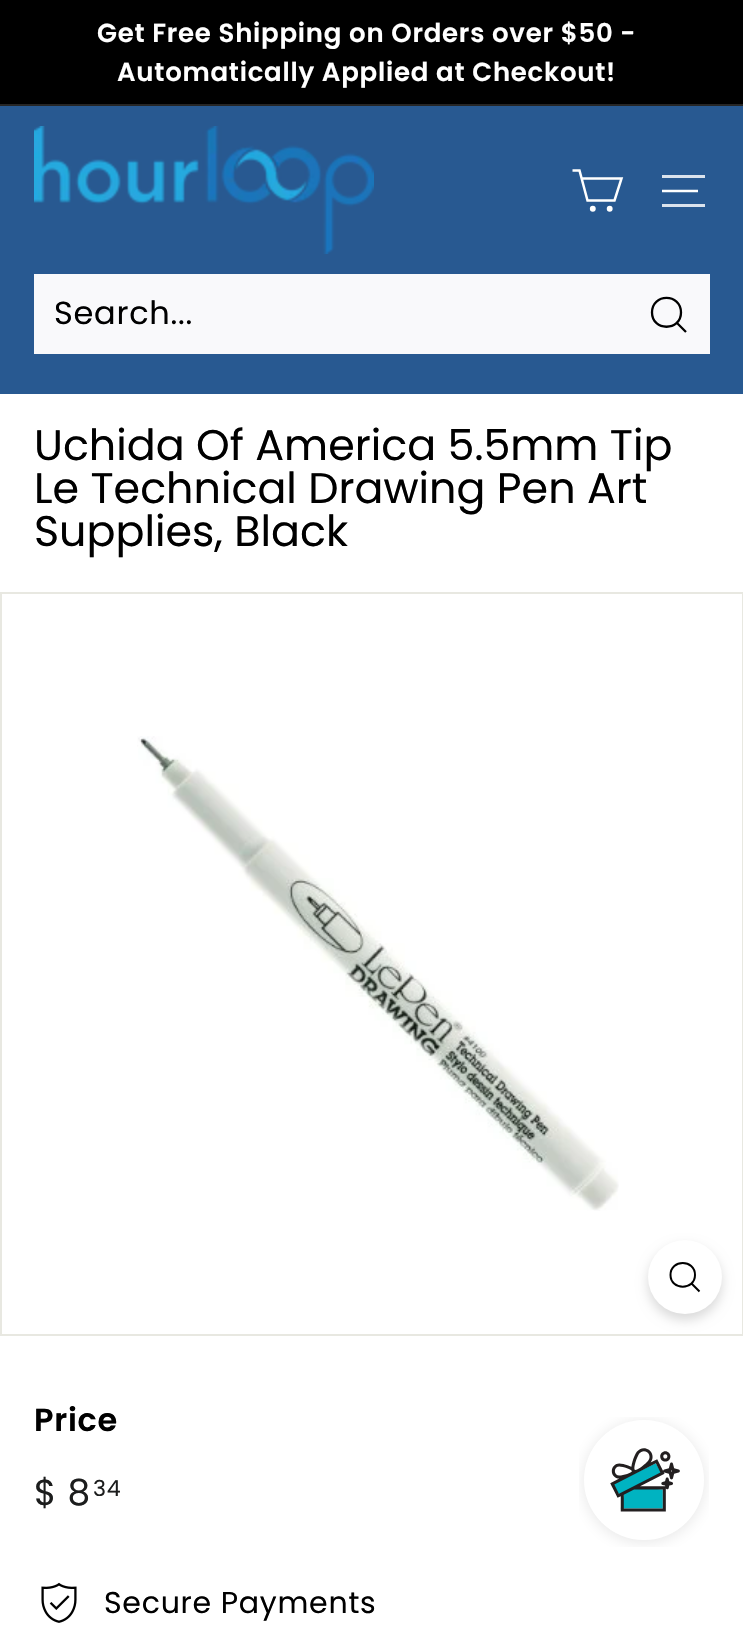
void draw(SkCanvas* canvas) {
  SkPaint paint;
  paint.setAntiAlias(true);
  auto face = [&](const char* family, int weight, float size, bool italic = false) {
    SkFontStyle style(weight, SkFontStyle::kNormal_Width,
      italic ? SkFontStyle::kItalic_Slant : SkFontStyle::kUpright_Slant);
    SkFont result(fontMgr->matchFamilyStyle(family, style), size);
    result.setSubpixel(true);
    return result;
  };
  auto writeSpaced = [&](const char* s, float x, float y, const SkFont& font, const SkPaint& ink, float letter, float word) {
    std::vector<SkGlyphID> glyphs(font.countText(s, strlen(s), SkTextEncoding::kUTF8));
    std::vector<float> xs(glyphs.size());
    font.textToGlyphs(s, strlen(s), SkTextEncoding::kUTF8, glyphs);
    font.getXPos(glyphs, xs, x);
    float extra = 0;
    for (size_t i = 0; i < glyphs.size(); i++) {
      xs[i] += extra;
      extra += letter + word * (glyphs[i] == font.unicharToGlyph(' '));
    }
    canvas->drawTextBlob(SkTextBlob::MakeFromPosHGlyphs(glyphs, xs, y, font), 0, 0, ink);
  };
  auto paste = [&](const char* path, float x, float y, float w, float h) {
    auto image = SkImages::DeferredFromEncodedData(SkData::MakeFromFileName(path));
    canvas->drawImageRect(image, SkRect::MakeXYWH(x, y, w, h), SkSamplingOptions());
  };
  auto shape = [&](const char* data, bool evenOdd = false) {
    SkPath result = *SkParsePath::FromSVGString(data);
    if (evenOdd) result.setFillType(SkPathFillType::kEvenOdd);
    return result;
  };
  canvas->clear(0xffffffff);
  {
    const struct { float x, y, w, h; SkColor color; } items[] = {
      {0, 0, 743, 104, 0xff000000},
      {0, 104, 743, 2, 0xff262626},
      {0, 106, 743, 288, 0xff285991},
    };
    for (auto [x, y, w, h, color] : items) {
      paint.setColor(color);
      canvas->drawRect(SkRect::MakeXYWH(x, y, w, h), paint);
    }
  }
  paste("img/1.png", 34, 126, 340, 128);
  paint.setStroke(true);
  paint.setStrokeWidth(2.5f);
  paint.setColor(0xffffffff);
  canvas->drawPath(shape("M582 178.5H621.5L614.5 200.5H587.5L579.5 170.5H572.5"), paint);
  paint.setStroke(false);
  canvas->drawCircle(592.8f, 208.7f, 1.7f, paint);
  paint.setStroke(true);
  canvas->drawCircle(592.8f, 208.7f, 1.7f, paint);
  paint.setStroke(false);
  canvas->drawCircle(609.7f, 208.7f, 1.7f, paint);
  paint.setStroke(true);
  canvas->drawCircle(609.7f, 208.7f, 1.7f, paint);
  paint.setStroke(false);
  paint.setColor(0xffdbe3ed);
  canvas->drawRect(SkRect::MakeXYWH(662, 175, 43, 3), paint);
  paint.setStroke(true);
  paint.setColor(0xffffffff);
  canvas->drawPath(shape("M662 191H698"), paint);
  paint.setStroke(false);
  paint.setColor(0xffdbe3ed);
  canvas->drawRect(SkRect::MakeXYWH(662, 204, 43, 3), paint);
  paint.setColor(0xfff9f9fb);
  canvas->drawRect(SkRect::MakeXYWH(34, 274, 676, 80), paint);
  paint.setStroke(true);
  paint.setStrokeWidth(2.3f);
  paint.setColor(0xff000000);
  canvas->drawPath(shape("M681 312.5C681 331.5 652 331.5 652 312.5C652 293 681 293 681 312.5ZM686 332L677 323"), paint);
  paint.setStrokeWidth(2);
  paint.setColor(0xffe8e8e1);
  canvas->drawRect(SkRect::MakeXYWH(1, 593, 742, 742), paint);
  paste("img/2.png", 137, 736, 482, 475);
  paint.setStroke(false);
  paint.setColor(0x26000000);
  paint.setMaskFilter(SkMaskFilter::MakeBlur(kNormal_SkBlurStyle, 6));
  canvas->drawRoundRect(SkRect::MakeXYWH(648, 1246, 74, 74), 37, 37, paint);
  paint.setMaskFilter(nullptr);
  paint.setColor(0xffffffff);
  canvas->drawCircle(685, 1277, 37, paint);
  paint.setStroke(true);
  paint.setColor(0xff000000);
  canvas->drawPath(shape("M695 1275C695 1290.5 670.5 1290.5 670.5 1275C670.5 1259 695 1259 695 1275ZM699.5 1291.5L691.5 1283.5"), paint);
  paste("img/3.png", 41, 1582, 36, 41);
  paste("img/4.png", 579, 1417, 130, 130);
  auto f0 = face("Poppins", 600, 26);
  paint.setStroke(false);
  paint.setColor(0xffffffff);
  writeSpaced("Get Free Shipping on Orders over $50 -", 97, 42, f0, paint, 0.75f, 0);
  writeSpaced("Automatically Applied at Checkout!", 117, 81, f0, paint, 0.75f, 0);
  auto f1 = face("Poppins", 400, 32);
  paint.setColor(0xff000000);
  writeSpaced("Search...", 54, 324, f1, paint, 0.75f, 0);
  auto f2 = face("Poppins", 400, 42.8f);
  {
    const struct { const char* s; float x, y; } items[] = {
      {"Uchida Of America 5.5mm Tip", 34, 460},
      {"Le Technical Drawing Pen Art", 34, 503},
      {"Supplies, Black", 34, 546},
    };
    for (auto [s, x, y] : items) {
      canvas->drawString(s, x, y, f2, paint);
    }
  }
  auto f3 = face("Poppins", 600, 32);
  writeSpaced("Price", 34, 1431, f3, paint, 0.75f, 0);
  auto f4 = face("Poppins", 400, 36);
  paint.setColor(0xff1c1d1d);
  writeSpaced("$ 8", 34, 1505, f4, paint, 0.75f, 0);
  auto f5 = face("Poppins", 400, 22);
  writeSpaced("34", 93, 1496, f5, paint, 0.75f, 0);
  auto f6 = face("Poppins", 400, 30);
  paint.setColor(0xff000000);
  writeSpaced("Secure Payments", 104, 1613, f6, paint, 0.75f, 0);
}
